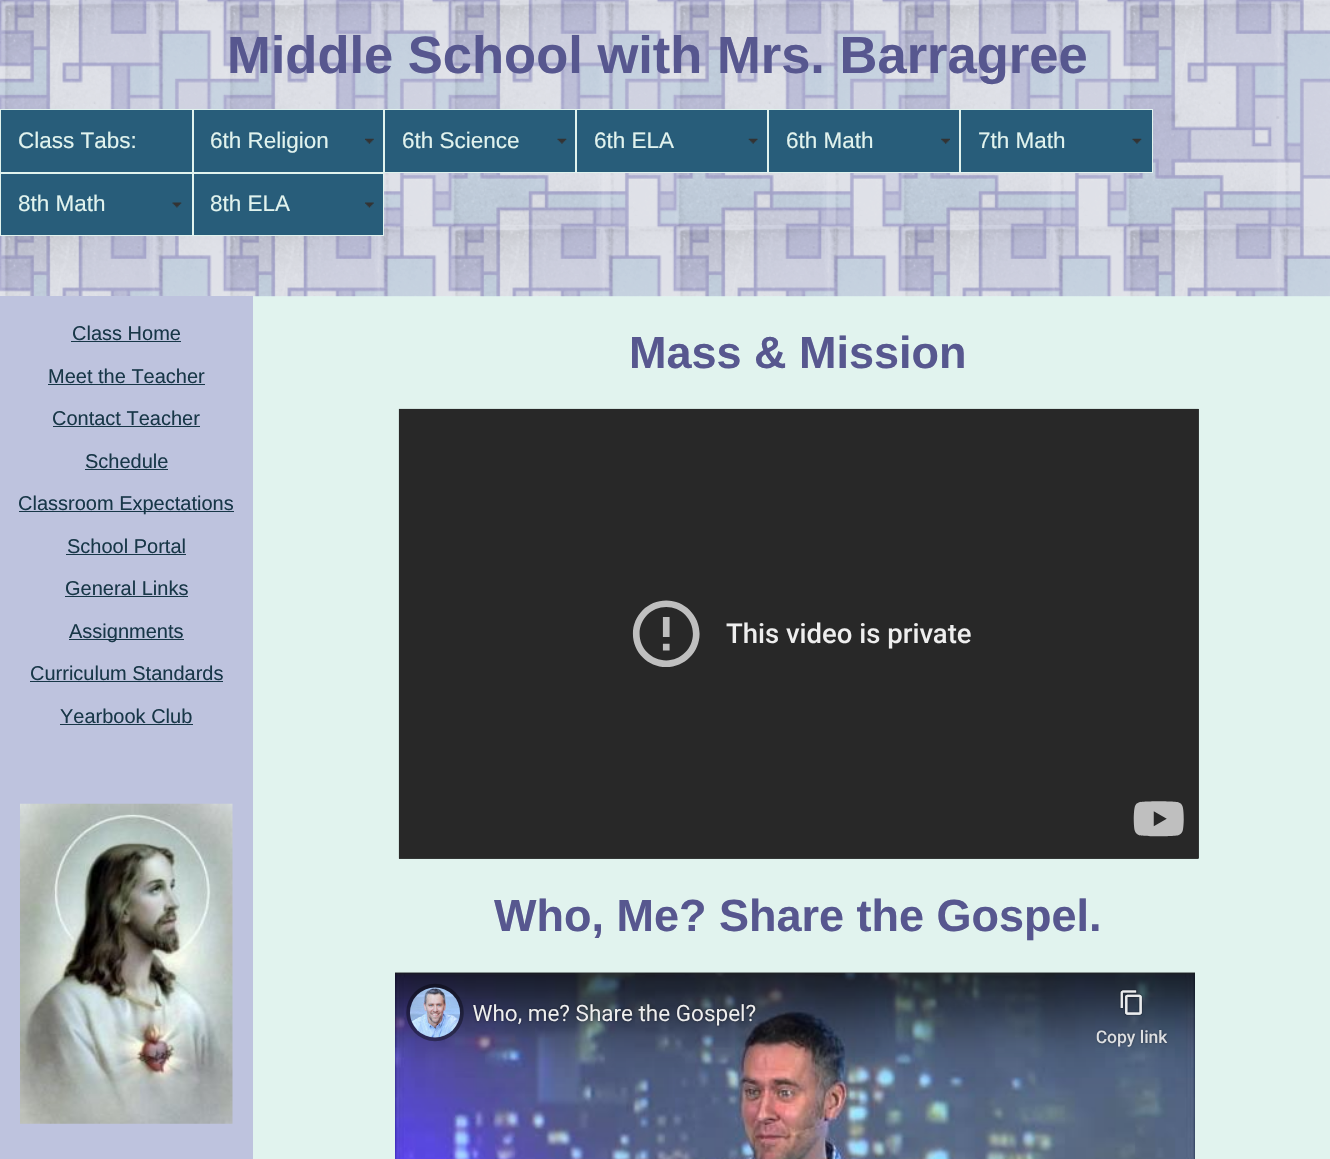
void draw(SkCanvas* canvas) {
  SkPaint paint;
  paint.setAntiAlias(true);
  auto face = [&](const char* family, int weight, float size, bool italic = false) {
    SkFontStyle style(weight, SkFontStyle::kNormal_Width,
      italic ? SkFontStyle::kItalic_Slant : SkFontStyle::kUpright_Slant);
    SkFont result(fontMgr->matchFamilyStyle(family, style), size);
    result.setSubpixel(true);
    return result;
  };
  auto paste = [&](const char* path, float x, float y, float w, float h) {
    auto image = SkImages::DeferredFromEncodedData(SkData::MakeFromFileName(path));
    canvas->drawImageRect(image, SkRect::MakeXYWH(x, y, w, h), SkSamplingOptions());
  };
  canvas->clear(0xffe1f3ee);
  paint.setColor(0xffdddddd);
  canvas->drawRect(SkRect::MakeXYWH(0, 0, 1330, 296), paint);
  paste("img/1.png", 0, 0, 1330, 297);
  paint.setColor(0xff285d7a);
  canvas->drawRect(SkRect::MakeXYWH(0.5f, 109.5f, 192, 63), paint);
  paint.setStroke(true);
  paint.setStrokeWidth(1);
  paint.setColor(0xffe1f3ee);
  canvas->drawRect(SkRect::MakeXYWH(0.5f, 109.5f, 192, 63), paint);
  paint.setStroke(false);
  paint.setColor(0xff285d7a);
  canvas->drawRect(SkRect::MakeXYWH(194, 110, 189, 62), paint);
  paste("img/2.png", 365, 138, 9, 6);
  paint.setStroke(true);
  paint.setColor(0xffe1f3ee);
  canvas->drawRect(SkRect::MakeXYWH(193.5f, 109.5f, 190, 63), paint);
  paint.setStroke(false);
  paint.setColor(0xff285d7a);
  canvas->drawRect(SkRect::MakeXYWH(385, 110, 190, 62), paint);
  paste("img/3.png", 557, 138, 10, 6);
  paint.setStroke(true);
  paint.setColor(0xffe1f3ee);
  canvas->drawRect(SkRect::MakeXYWH(384.5f, 109.5f, 191, 63), paint);
  paint.setStroke(false);
  paint.setColor(0xff285d7a);
  canvas->drawRect(SkRect::MakeXYWH(577, 110, 190, 62), paint);
  paste("img/4.png", 748, 138, 10, 6);
  paint.setStroke(true);
  paint.setColor(0xffe1f3ee);
  canvas->drawRect(SkRect::MakeXYWH(576.5f, 109.5f, 191, 63), paint);
  paint.setStroke(false);
  paint.setColor(0xff285d7a);
  canvas->drawRect(SkRect::MakeXYWH(769, 110, 190, 62), paint);
  paste("img/5.png", 941, 138, 9, 6);
  paint.setStroke(true);
  paint.setColor(0xffe1f3ee);
  canvas->drawRect(SkRect::MakeXYWH(768.5f, 109.5f, 191, 63), paint);
  paint.setStroke(false);
  paint.setColor(0xff285d7a);
  canvas->drawRect(SkRect::MakeXYWH(961, 110, 191, 62), paint);
  paste("img/3.png", 1132, 138, 10, 6);
  paint.setStroke(true);
  paint.setColor(0xffe1f3ee);
  canvas->drawRect(SkRect::MakeXYWH(960.5f, 109.5f, 192, 63), paint);
  paint.setStroke(false);
  paint.setColor(0xff285d7a);
  canvas->drawRect(SkRect::MakeXYWH(1, 174, 191, 61), paint);
  paste("img/6.png", 172, 202, 10, 6);
  paint.setStroke(true);
  paint.setColor(0xffe1f3ee);
  canvas->drawRect(SkRect::MakeXYWH(0.5f, 173.5f, 192, 62), paint);
  paint.setStroke(false);
  paint.setColor(0xff285d7a);
  canvas->drawRect(SkRect::MakeXYWH(194, 174, 189, 61), paint);
  paste("img/7.png", 365, 202, 9, 6);
  paint.setStroke(true);
  paint.setColor(0xffe1f3ee);
  canvas->drawRect(SkRect::MakeXYWH(193.5f, 173.5f, 190, 62), paint);
  paint.setStroke(false);
  {
    const struct { float x, y, w, h; SkColor color; } items[] = {
      {0, 296, 253, 863, 0xffbec3de},
      {71, 341, 110, 1, 0xff183748},
      {48, 384, 157, 1, 0xff183748},
      {53, 426, 147, 1, 0xff183748},
      {85, 469, 83, 1, 0xff183748},
      {19, 511, 215, 1, 0xff183748},
      {66, 554, 120, 1, 0xff183748},
      {65, 596, 123, 1, 0xff183748},
      {69, 639, 115, 1, 0xff183748},
      {30, 681, 193, 1, 0xff183748},
      {60, 724, 133, 1, 0xff183748},
    };
    for (auto [x, y, w, h, color] : items) {
      paint.setColor(color);
      canvas->drawRect(SkRect::MakeXYWH(x, y, w, h), paint);
    }
  }
  paste("img/8.png", 20, 803, 213, 321);
  paste("img/9.png", 398, 408, 801, 451);
  paste("img/10.png", 395, 972, 800, 187);
  auto f0 = face("Liberation Sans", 700, 52.5f);
  paint.setColor(0xff57578f);
  canvas->drawString("Middle School with Mrs. Barragree", 227, 73, f0, paint);
  auto f1 = face("Liberation Sans", 400, 22.5f);
  paint.setColor(0xffe1f3ee);
  {
    const struct { const char* s; float x, y; } items[] = {
      {"Class Tabs:", 18, 148},
      {"6th Religion", 210, 148},
      {"6th Science", 402, 148},
      {"6th ELA", 594, 148},
      {"6th Math", 786, 148},
      {"7th Math", 978, 148},
      {"8th Math", 18, 211},
      {"8th ELA", 210, 211},
    };
    for (auto [s, x, y] : items) {
      canvas->drawString(s, x, y, f1, paint);
    }
  }
  auto f2 = face("Liberation Sans", 400, 20);
  paint.setColor(0xff183748);
  {
    const struct { const char* s; float x, y; } items[] = {
      {"Class Home", 72, 340},
      {"Meet the Teacher", 48, 383},
      {"Contact Teacher", 52, 425},
      {"Schedule", 85, 468},
      {"Classroom Expectations", 18, 510},
      {"School Portal", 67, 553},
      {"General Links", 65, 595},
      {"Assignments", 69, 638},
      {"Curriculum Standards", 30, 680},
      {"Yearbook Club", 60, 723},
    };
    for (auto [s, x, y] : items) {
      canvas->drawString(s, x, y, f2, paint);
    }
  }
  auto f3 = face("Liberation Sans", 700, 45);
  paint.setColor(0xff57578f);
  canvas->drawString("Mass & Mission", 629, 368, f3, paint);
  canvas->drawString("Who, Me? Share the Gospel.", 494, 931, f3, paint);
}
